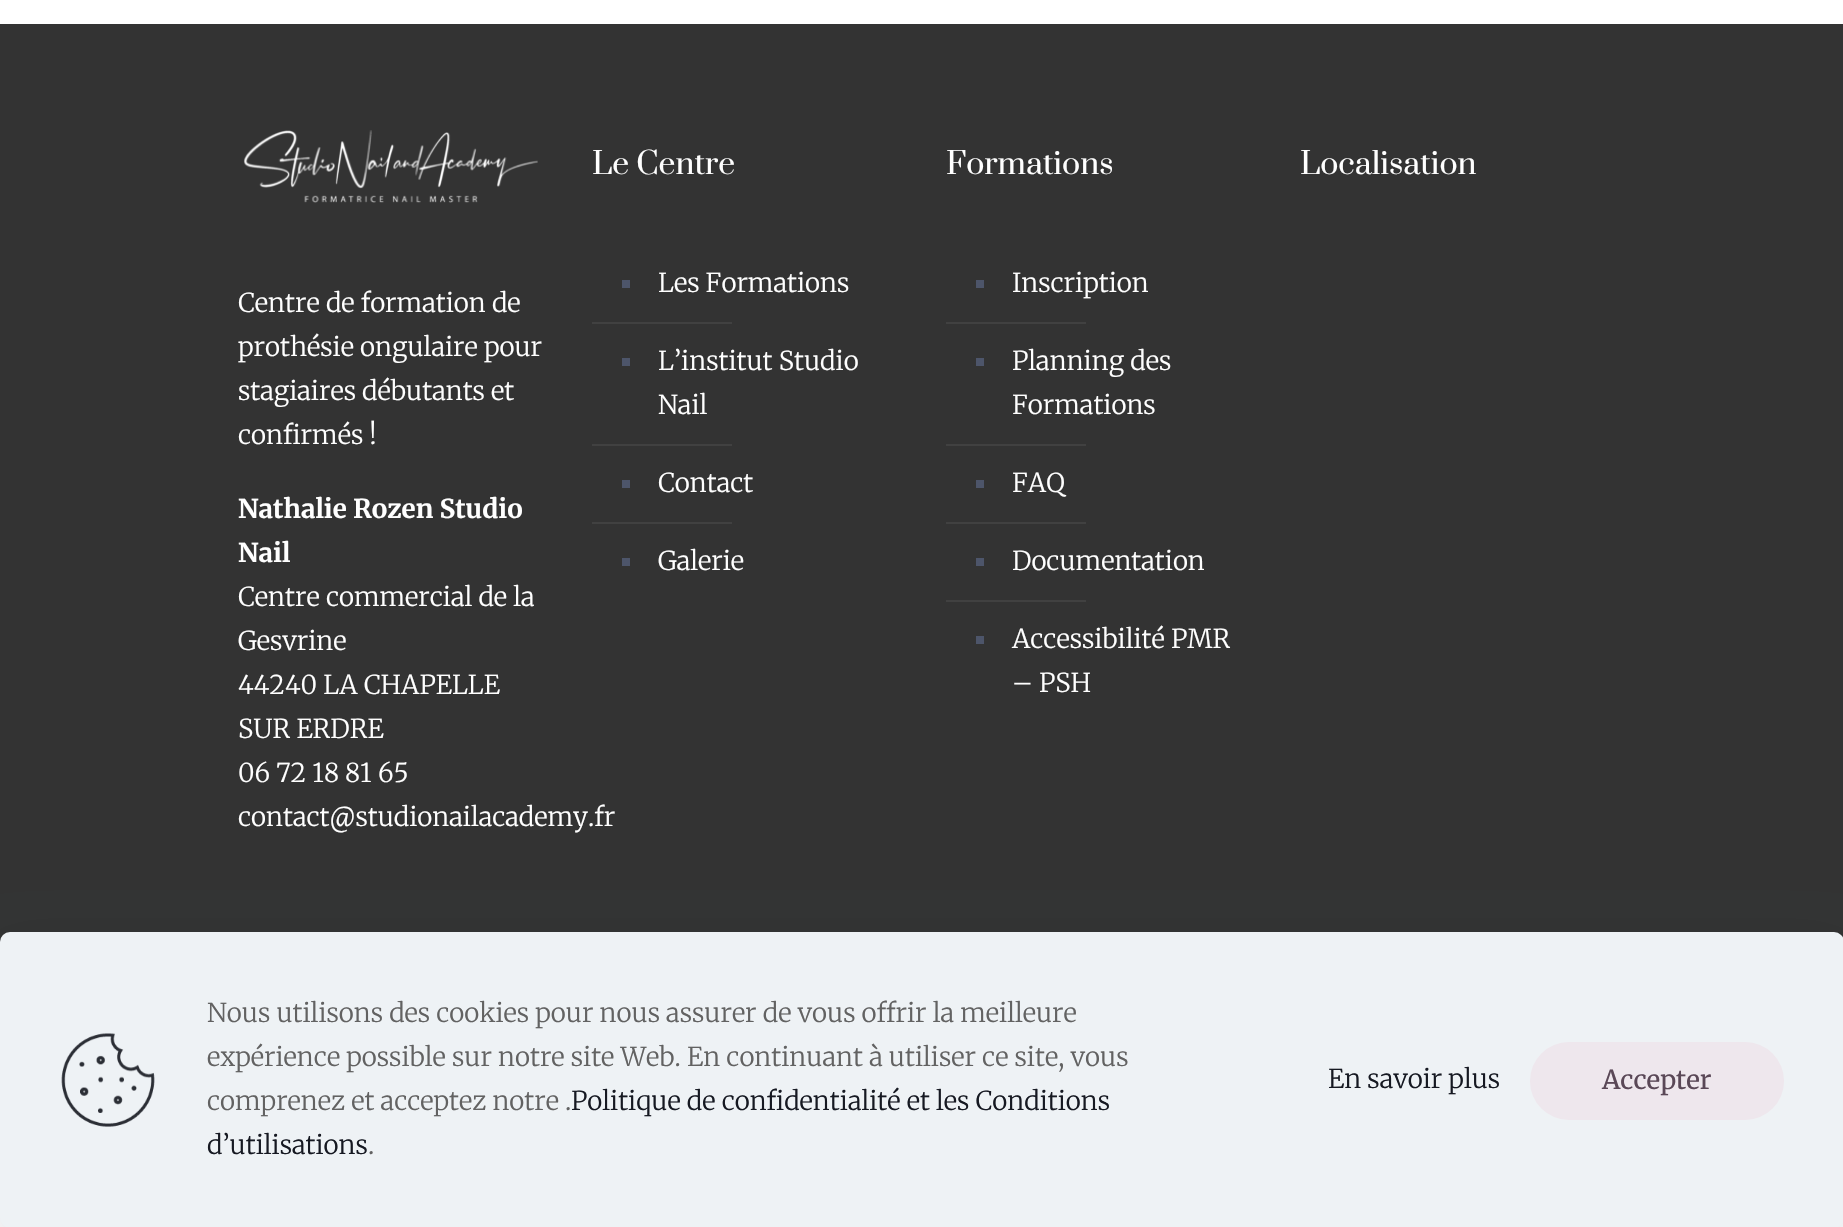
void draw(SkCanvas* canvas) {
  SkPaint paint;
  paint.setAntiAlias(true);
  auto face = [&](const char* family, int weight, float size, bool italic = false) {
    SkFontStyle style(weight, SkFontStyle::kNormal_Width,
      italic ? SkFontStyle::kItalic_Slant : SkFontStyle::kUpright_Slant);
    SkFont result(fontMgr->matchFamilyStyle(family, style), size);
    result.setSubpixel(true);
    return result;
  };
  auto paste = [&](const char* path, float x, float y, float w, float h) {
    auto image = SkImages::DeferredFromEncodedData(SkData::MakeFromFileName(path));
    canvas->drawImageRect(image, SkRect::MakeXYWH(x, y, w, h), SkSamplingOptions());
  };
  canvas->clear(0xffffffff);
  {
    const struct { float x, y, w, h; SkColor color; } items[] = {
      {0, 24, 1843, 918, 0xff333333},
      {622, 280, 8, 8, 0xff4d556a},
      {592, 322, 140, 2, 0xff414141},
      {622, 358, 8, 8, 0xff4d556a},
      {592, 444, 140, 2, 0xff414141},
      {622, 480, 8, 8, 0xff4d556a},
      {592, 522, 140, 2, 0xff414141},
      {622, 558, 8, 8, 0xff4d556a},
      {976, 280, 8, 8, 0xff4d556a},
      {946, 322, 140, 2, 0xff414141},
      {976, 358, 8, 8, 0xff4d556a},
      {946, 444, 140, 2, 0xff414141},
      {976, 480, 8, 8, 0xff4d556a},
      {946, 522, 140, 2, 0xff414141},
      {976, 558, 8, 8, 0xff4d556a},
      {946, 600, 140, 2, 0xff414141},
      {976, 636, 8, 8, 0xff4d556a},
    };
    for (auto [x, y, w, h, color] : items) {
      paint.setColor(color);
      canvas->drawRect(SkRect::MakeXYWH(x, y, w, h), paint);
    }
  }
  paste("img/1.png", 243, 130, 295, 73);
  paint.setColor(0x21010727);
  paint.setMaskFilter(SkMaskFilter::MakeBlur(kNormal_SkBlurStyle, 30));
  canvas->drawRoundRect(SkRect::MakeXYWH(0, 962, 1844, 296), 10, 10, paint);
  paint.setMaskFilter(nullptr);
  paint.setColor(0xffeef2f5);
  canvas->drawRoundRect(SkRect::MakeXYWH(0, 932, 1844, 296), 10, 10, paint);
  paste("img/2.png", 61, 1033, 94, 94);
  paint.setColor(0xffeee7ed);
  canvas->drawRoundRect(SkRect::MakeXYWH(1530, 1042, 254, 78), 39, 39, paint);
  auto f0 = face("Prata", 400, 30);
  paint.setColor(0xffffffff);
  canvas->drawString("Le Centre", 592, 174, f0, paint);
  auto f1 = face("Merriweather", 300, 26);
  {
    const struct { const char* s; float x, y; } items[] = {
      {"Les Formations", 658, 292},
      {"L’institut Studio", 658, 370},
      {"Nail", 658, 414},
      {"Contact", 658, 492},
      {"Galerie", 658, 570},
    };
    for (auto [s, x, y] : items) {
      canvas->drawString(s, x, y, f1, paint);
    }
  }
  canvas->drawString("Formations", 946, 174, f0, paint);
  {
    const struct { const char* s; float x, y; } items[] = {
      {"Inscription", 1012, 292},
      {"Planning des", 1012, 370},
      {"Formations", 1012, 414},
      {"FAQ", 1012, 492},
      {"Documentation", 1012, 570},
      {"Accessibilité PMR", 1012, 648},
      {"– PSH", 1012, 692},
    };
    for (auto [s, x, y] : items) {
      canvas->drawString(s, x, y, f1, paint);
    }
  }
  canvas->drawString("Localisation", 1300, 174, f0, paint);
  {
    const struct { const char* s; float x, y; } items[] = {
      {"Centre de formation de", 238, 312},
      {"prothésie ongulaire pour", 238, 356},
      {"stagiaires débutants et", 238, 400},
      {"confirmés !", 238, 444},
    };
    for (auto [s, x, y] : items) {
      canvas->drawString(s, x, y, f1, paint);
    }
  }
  auto f2 = face("Merriweather", 700, 26);
  canvas->drawString("Nathalie Rozen Studio", 238, 518, f2, paint);
  canvas->drawString("Nail", 238, 562, f2, paint);
  {
    const struct { const char* s; float x, y; } items[] = {
      {"Centre commercial de la", 238, 606},
      {"Gesvrine", 238, 650},
      {"44240 LA CHAPELLE", 238, 694},
      {"SUR ERDRE", 238, 738},
      {"06 72 18 81 65", 238, 782},
      {"contact@studionailacademy.fr", 238, 826},
    };
    for (auto [s, x, y] : items) {
      canvas->drawString(s, x, y, f1, paint);
    }
  }
  paint.setColor(0xff626262);
  {
    const struct { const char* s; float x, y; } items[] = {
      {"Nous utilisons des cookies pour nous assurer de vous offrir la meilleure", 207, 1022},
      {"expérience possible sur notre site Web. En continuant à utiliser ce site, vous", 207, 1066},
      {"comprenez et acceptez notre .", 207, 1110},
    };
    for (auto [s, x, y] : items) {
      canvas->drawString(s, x, y, f1, paint);
    }
  }
  paint.setColor(0xff161922);
  canvas->drawString("Politique de confidentialité et les Conditions", 571, 1110, f1, paint);
  canvas->drawString("d’utilisations", 207, 1154, f1, paint);
  paint.setColor(0xff626262);
  canvas->drawString(".", 368, 1154, f1, paint);
  paint.setColor(0xff161922);
  canvas->drawString("En savoir plus", 1328, 1088, f1, paint);
  auto f3 = face("Merriweather", 400, 26);
  paint.setColor(0xff5a4857);
  canvas->drawString("Accepter", 1602, 1089, f3, paint);
}
